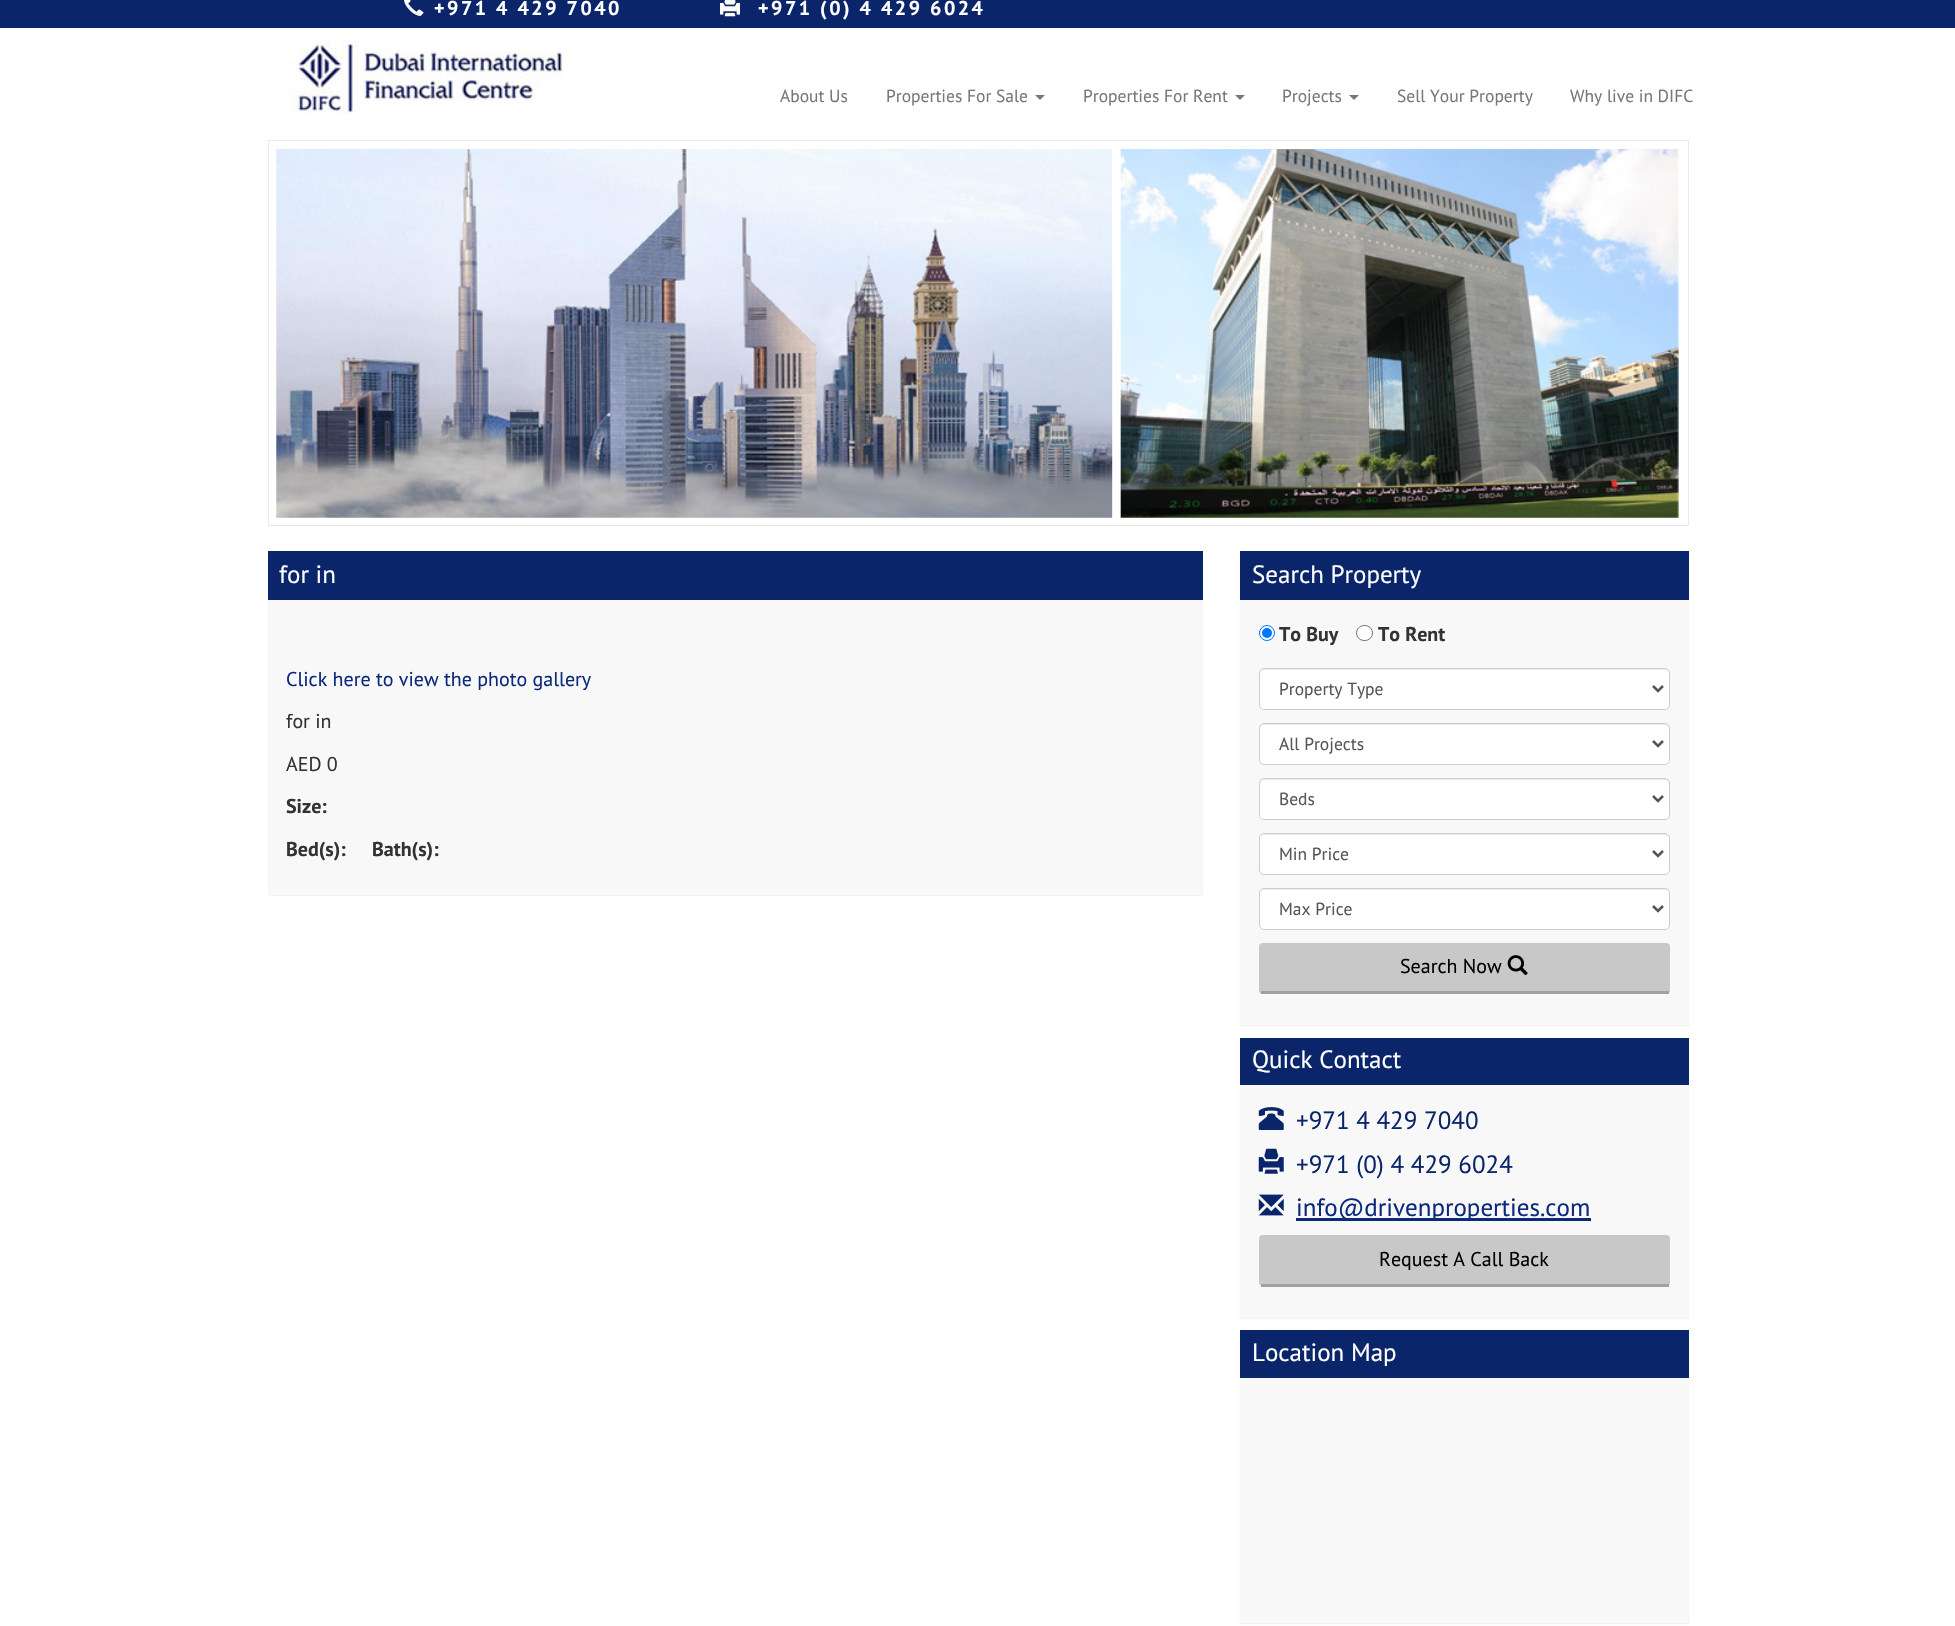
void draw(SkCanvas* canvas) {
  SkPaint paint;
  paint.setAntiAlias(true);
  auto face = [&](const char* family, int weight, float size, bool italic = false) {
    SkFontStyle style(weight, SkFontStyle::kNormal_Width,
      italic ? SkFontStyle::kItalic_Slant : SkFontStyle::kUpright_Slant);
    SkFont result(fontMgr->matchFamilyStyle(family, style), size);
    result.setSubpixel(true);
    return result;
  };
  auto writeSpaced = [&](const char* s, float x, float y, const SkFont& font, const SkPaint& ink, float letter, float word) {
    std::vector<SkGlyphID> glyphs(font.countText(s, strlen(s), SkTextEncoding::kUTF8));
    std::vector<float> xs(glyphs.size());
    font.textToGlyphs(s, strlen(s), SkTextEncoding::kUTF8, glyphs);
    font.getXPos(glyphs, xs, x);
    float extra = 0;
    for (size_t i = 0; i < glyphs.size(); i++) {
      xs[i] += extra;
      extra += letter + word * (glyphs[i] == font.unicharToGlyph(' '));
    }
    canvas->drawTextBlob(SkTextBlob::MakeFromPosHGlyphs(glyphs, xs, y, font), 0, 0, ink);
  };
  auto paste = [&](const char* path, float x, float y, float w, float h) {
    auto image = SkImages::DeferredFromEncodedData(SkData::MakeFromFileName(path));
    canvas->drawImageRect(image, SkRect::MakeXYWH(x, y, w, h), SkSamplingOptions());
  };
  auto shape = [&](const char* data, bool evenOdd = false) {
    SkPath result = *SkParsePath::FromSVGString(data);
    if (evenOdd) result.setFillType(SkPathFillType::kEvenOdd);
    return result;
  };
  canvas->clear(0xffffffff);
  paint.setColor(0xff0a256a);
  canvas->drawRect(SkRect::MakeXYWH(0, 0, 1955, 28), paint);
  paste("img/1.png", 404, 0, 20, 16);
  paste("img/2.png", 720, 0, 20, 17);
  paste("img/3.png", 291, 40, 273, 74);
  paint.setColor(0xff777777);
  canvas->drawPath(shape("M1035 95H1045L1040 100Z"), paint);
  canvas->drawPath(shape("M1235 95H1245L1240 100Z"), paint);
  canvas->drawPath(shape("M1349 95H1359L1354 100Z"), paint);
  paint.setStroke(true);
  paint.setStrokeWidth(1);
  paint.setColor(0xffeaeaea);
  canvas->drawRect(SkRect::MakeXYWH(268.5f, 140.5f, 1420, 385), paint);
  paste("img/4.png", 276, 149, 1403, 369);
  paint.setStroke(false);
  paint.setColor(0x0d000000);
  paint.setMaskFilter(SkMaskFilter::MakeBlur(kNormal_SkBlurStyle, 0.5f));
  canvas->drawRect(SkRect::MakeXYWH(268, 553, 935, 343), paint);
  paint.setMaskFilter(nullptr);
  paint.setColor(0xfff8f8f8);
  canvas->drawRect(SkRect::MakeXYWH(268, 600, 935, 295), paint);
  paint.setColor(0xff0a256a);
  canvas->drawRect(SkRect::MakeXYWH(268, 551, 935, 49), paint);
  paint.setColor(0x0d000000);
  paint.setMaskFilter(SkMaskFilter::MakeBlur(kNormal_SkBlurStyle, 0.5f));
  canvas->drawRect(SkRect::MakeXYWH(1240, 553, 449, 473), paint);
  paint.setMaskFilter(nullptr);
  paint.setColor(0xfff8f8f8);
  canvas->drawRect(SkRect::MakeXYWH(1240, 600, 449, 425), paint);
  paint.setColor(0xff0a256a);
  canvas->drawRect(SkRect::MakeXYWH(1240, 551, 449, 49), paint);
  paint.setColor(0xffffffff);
  canvas->drawCircle(1267, 633, 7.5f, paint);
  paint.setStroke(true);
  paint.setColor(0xff0075ff);
  canvas->drawCircle(1267, 633, 7.5f, paint);
  paint.setStroke(false);
  canvas->drawCircle(1267, 633, 5, paint);
  paint.setColor(0xffffffff);
  canvas->drawRoundRect(SkRect::MakeXYWH(1356.5f, 625.5f, 16, 15), 7.5f, 7.5f, paint);
  paint.setStroke(true);
  paint.setColor(0xff767676);
  canvas->drawRoundRect(SkRect::MakeXYWH(1356.5f, 625.5f, 16, 15), 7.5f, 7.5f, paint);
  paint.setStroke(false);
  paint.setColor(0xffffffff);
  canvas->drawRoundRect(SkRect::MakeXYWH(1259, 668, 411, 42), 5, 5, paint);
  paint.setColor(0xffececec);
  canvas->drawPath(shape("M1264 670H1665C1667 670 1669 672 1669 674V673C1669 671 1667 669 1665 669H1264C1262 669 1260 671 1260 673V674C1260 672 1262 670 1264 670Z"), paint);
  paint.setStroke(true);
  paint.setColor(0xffcccccc);
  canvas->drawRoundRect(SkRect::MakeXYWH(1259.5f, 668.5f, 410, 41), 4.5f, 4.5f, paint);
  paint.setStrokeWidth(2.5f);
  paint.setColor(0xff555555);
  canvas->drawPath(shape("M1653 686L1658 691L1663 686"), paint);
  paint.setStroke(false);
  paint.setColor(0xffffffff);
  canvas->drawRoundRect(SkRect::MakeXYWH(1259, 723, 411, 42), 5, 5, paint);
  paint.setColor(0xffececec);
  canvas->drawPath(shape("M1264 725H1665C1667 725 1669 727 1669 729V728C1669 726 1667 724 1665 724H1264C1262 724 1260 726 1260 728V729C1260 727 1262 725 1264 725Z"), paint);
  paint.setStroke(true);
  paint.setStrokeWidth(1);
  paint.setColor(0xffcccccc);
  canvas->drawRoundRect(SkRect::MakeXYWH(1259.5f, 723.5f, 410, 41), 4.5f, 4.5f, paint);
  paint.setStrokeWidth(2.5f);
  paint.setColor(0xff555555);
  canvas->drawPath(shape("M1653 741L1658 746L1663 741"), paint);
  paint.setStroke(false);
  paint.setColor(0xffffffff);
  canvas->drawRoundRect(SkRect::MakeXYWH(1259, 778, 411, 42), 5, 5, paint);
  paint.setColor(0xffececec);
  canvas->drawPath(shape("M1264 780H1665C1667 780 1669 782 1669 784V783C1669 781 1667 779 1665 779H1264C1262 779 1260 781 1260 783V784C1260 782 1262 780 1264 780Z"), paint);
  paint.setStroke(true);
  paint.setStrokeWidth(1);
  paint.setColor(0xffcccccc);
  canvas->drawRoundRect(SkRect::MakeXYWH(1259.5f, 778.5f, 410, 41), 4.5f, 4.5f, paint);
  paint.setStrokeWidth(2.5f);
  paint.setColor(0xff555555);
  canvas->drawPath(shape("M1653 796L1658 801L1663 796"), paint);
  paint.setStroke(false);
  paint.setColor(0xffffffff);
  canvas->drawRoundRect(SkRect::MakeXYWH(1259, 833, 411, 42), 5, 5, paint);
  paint.setColor(0xffececec);
  canvas->drawPath(shape("M1264 835H1665C1667 835 1669 837 1669 839V838C1669 836 1667 834 1665 834H1264C1262 834 1260 836 1260 838V839C1260 837 1262 835 1264 835Z"), paint);
  paint.setStroke(true);
  paint.setStrokeWidth(1);
  paint.setColor(0xffcccccc);
  canvas->drawRoundRect(SkRect::MakeXYWH(1259.5f, 833.5f, 410, 41), 4.5f, 4.5f, paint);
  paint.setStrokeWidth(2.5f);
  paint.setColor(0xff555555);
  canvas->drawPath(shape("M1653 851L1658 856L1663 851"), paint);
  paint.setStroke(false);
  paint.setColor(0xffffffff);
  canvas->drawRoundRect(SkRect::MakeXYWH(1259, 888, 411, 42), 5, 5, paint);
  paint.setColor(0xffececec);
  canvas->drawPath(shape("M1264 890H1665C1667 890 1669 892 1669 894V893C1669 891 1667 889 1665 889H1264C1262 889 1260 891 1260 893V894C1260 892 1262 890 1264 890Z"), paint);
  paint.setStroke(true);
  paint.setStrokeWidth(1);
  paint.setColor(0xffcccccc);
  canvas->drawRoundRect(SkRect::MakeXYWH(1259.5f, 888.5f, 410, 41), 4.5f, 4.5f, paint);
  paint.setStrokeWidth(2.5f);
  paint.setColor(0xff555555);
  canvas->drawPath(shape("M1653 906L1658 911L1663 906"), paint);
  paint.setStroke(false);
  paint.setColor(0xffc8c8c8);
  canvas->drawRoundRect(SkRect::MakeXYWH(1259, 943, 411, 51), 4, 4, paint);
  paint.setColor(0xffa1a1a1);
  canvas->drawRect(SkRect::MakeXYWH(1261, 991, 408, 3), paint);
  paste("img/5.png", 1507, 955, 21, 21);
  paint.setColor(0x0d000000);
  paint.setMaskFilter(SkMaskFilter::MakeBlur(kNormal_SkBlurStyle, 0.5f));
  canvas->drawRect(SkRect::MakeXYWH(1240, 1039, 449, 280), paint);
  paint.setMaskFilter(nullptr);
  paint.setColor(0xfff8f8f8);
  canvas->drawRect(SkRect::MakeXYWH(1240, 1085, 449, 233), paint);
  paint.setColor(0xff0a256a);
  canvas->drawRect(SkRect::MakeXYWH(1240, 1038, 449, 47), paint);
  paste("img/6.png", 1258, 1107, 26, 23);
  paste("img/7.png", 1258, 1148, 26, 26);
  paste("img/8.png", 1258, 1194, 26, 22);
  paint.setColor(0xff0b2a7d);
  canvas->drawRect(SkRect::MakeXYWH(1296, 1218, 295, 3), paint);
  paint.setColor(0xffc8c8c8);
  canvas->drawRoundRect(SkRect::MakeXYWH(1259, 1235, 411, 51), 4, 4, paint);
  paint.setColor(0xffa1a1a1);
  canvas->drawRect(SkRect::MakeXYWH(1261, 1284, 408, 3), paint);
  paint.setColor(0x0d000000);
  paint.setMaskFilter(SkMaskFilter::MakeBlur(kNormal_SkBlurStyle, 0.5f));
  canvas->drawRect(SkRect::MakeXYWH(1240, 1331, 449, 293), paint);
  paint.setMaskFilter(nullptr);
  paint.setColor(0xfff8f8f8);
  canvas->drawRect(SkRect::MakeXYWH(1240, 1378, 449, 245), paint);
  paint.setColor(0xff0a256a);
  canvas->drawRect(SkRect::MakeXYWH(1240, 1330, 449, 48), paint);
  auto f0 = face("PT Sans", 700, 20);
  paint.setColor(0xffffffff);
  writeSpaced("+971 4 429 7040", 434, 15, f0, paint, 2.5f, 0);
  writeSpaced("+971 (0) 4 429 6024", 758, 15, f0, paint, 2.5f, 0);
  auto f1 = face("PT Sans", 400, 17.5f);
  paint.setColor(0xff777777);
  {
    const struct { const char* s; float x, y; } items[] = {
      {"About Us", 780, 102},
      {"Properties For Sale", 886, 102},
      {"Properties For Rent", 1083, 102},
      {"Projects", 1282, 102},
      {"Sell Your Property", 1397, 102},
      {"Why live in DIFC", 1570, 102},
    };
    for (auto [s, x, y] : items) {
      canvas->drawString(s, x, y, f1, paint);
    }
  }
  auto f2 = face("PT Sans", 400, 25);
  paint.setColor(0xffffffff);
  canvas->drawString("for in", 279, 583, f2, paint);
  auto f3 = face("PT Sans", 400, 20);
  paint.setColor(0xff0b2a7d);
  canvas->drawString("Click here to view the photo gallery", 286, 686, f3, paint);
  paint.setColor(0xff333333);
  canvas->drawString("for in", 286, 728, f3, paint);
  canvas->drawString("AED 0", 286, 771, f3, paint);
  {
    const struct { const char* s; float x, y; } items[] = {
      {"Size:", 286, 813},
      {"Bed(s):", 286, 856},
      {"Bath(s):", 372, 856},
    };
    for (auto [s, x, y] : items) {
      canvas->drawString(s, x, y, f0, paint);
    }
  }
  paint.setColor(0xffffffff);
  canvas->drawString("Search Property", 1252, 583, f2, paint);
  paint.setColor(0xff333333);
  canvas->drawString("To Buy", 1279, 641, f0, paint);
  canvas->drawString("To Rent", 1378, 641, f0, paint);
  paint.setColor(0xff555555);
  {
    const struct { const char* s; float x, y; } items[] = {
      {"Property Type", 1279, 695},
      {"All Projects", 1279, 750},
      {"Beds", 1279, 805},
      {"Min Price", 1279, 860},
      {"Max Price", 1279, 915},
    };
    for (auto [s, x, y] : items) {
      canvas->drawString(s, x, y, f1, paint);
    }
  }
  paint.setColor(0xff000000);
  canvas->drawString("Search Now", 1400, 973, f3, paint);
  paint.setColor(0xffffffff);
  canvas->drawString("Quick Contact", 1252, 1068, f2, paint);
  paint.setColor(0xff0a256a);
  canvas->drawString("+971 4 429 7040", 1296, 1129, f2, paint);
  canvas->drawString("+971 (0) 4 429 6024", 1296, 1173, f2, paint);
  paint.setColor(0xff0b2a7d);
  canvas->drawString("info@drivenproperties.com", 1296, 1216, f2, paint);
  paint.setColor(0xff000000);
  canvas->drawString("Request A Call Back", 1379, 1266, f3, paint);
  paint.setColor(0xffffffff);
  canvas->drawString("Location Map", 1252, 1361, f2, paint);
}
